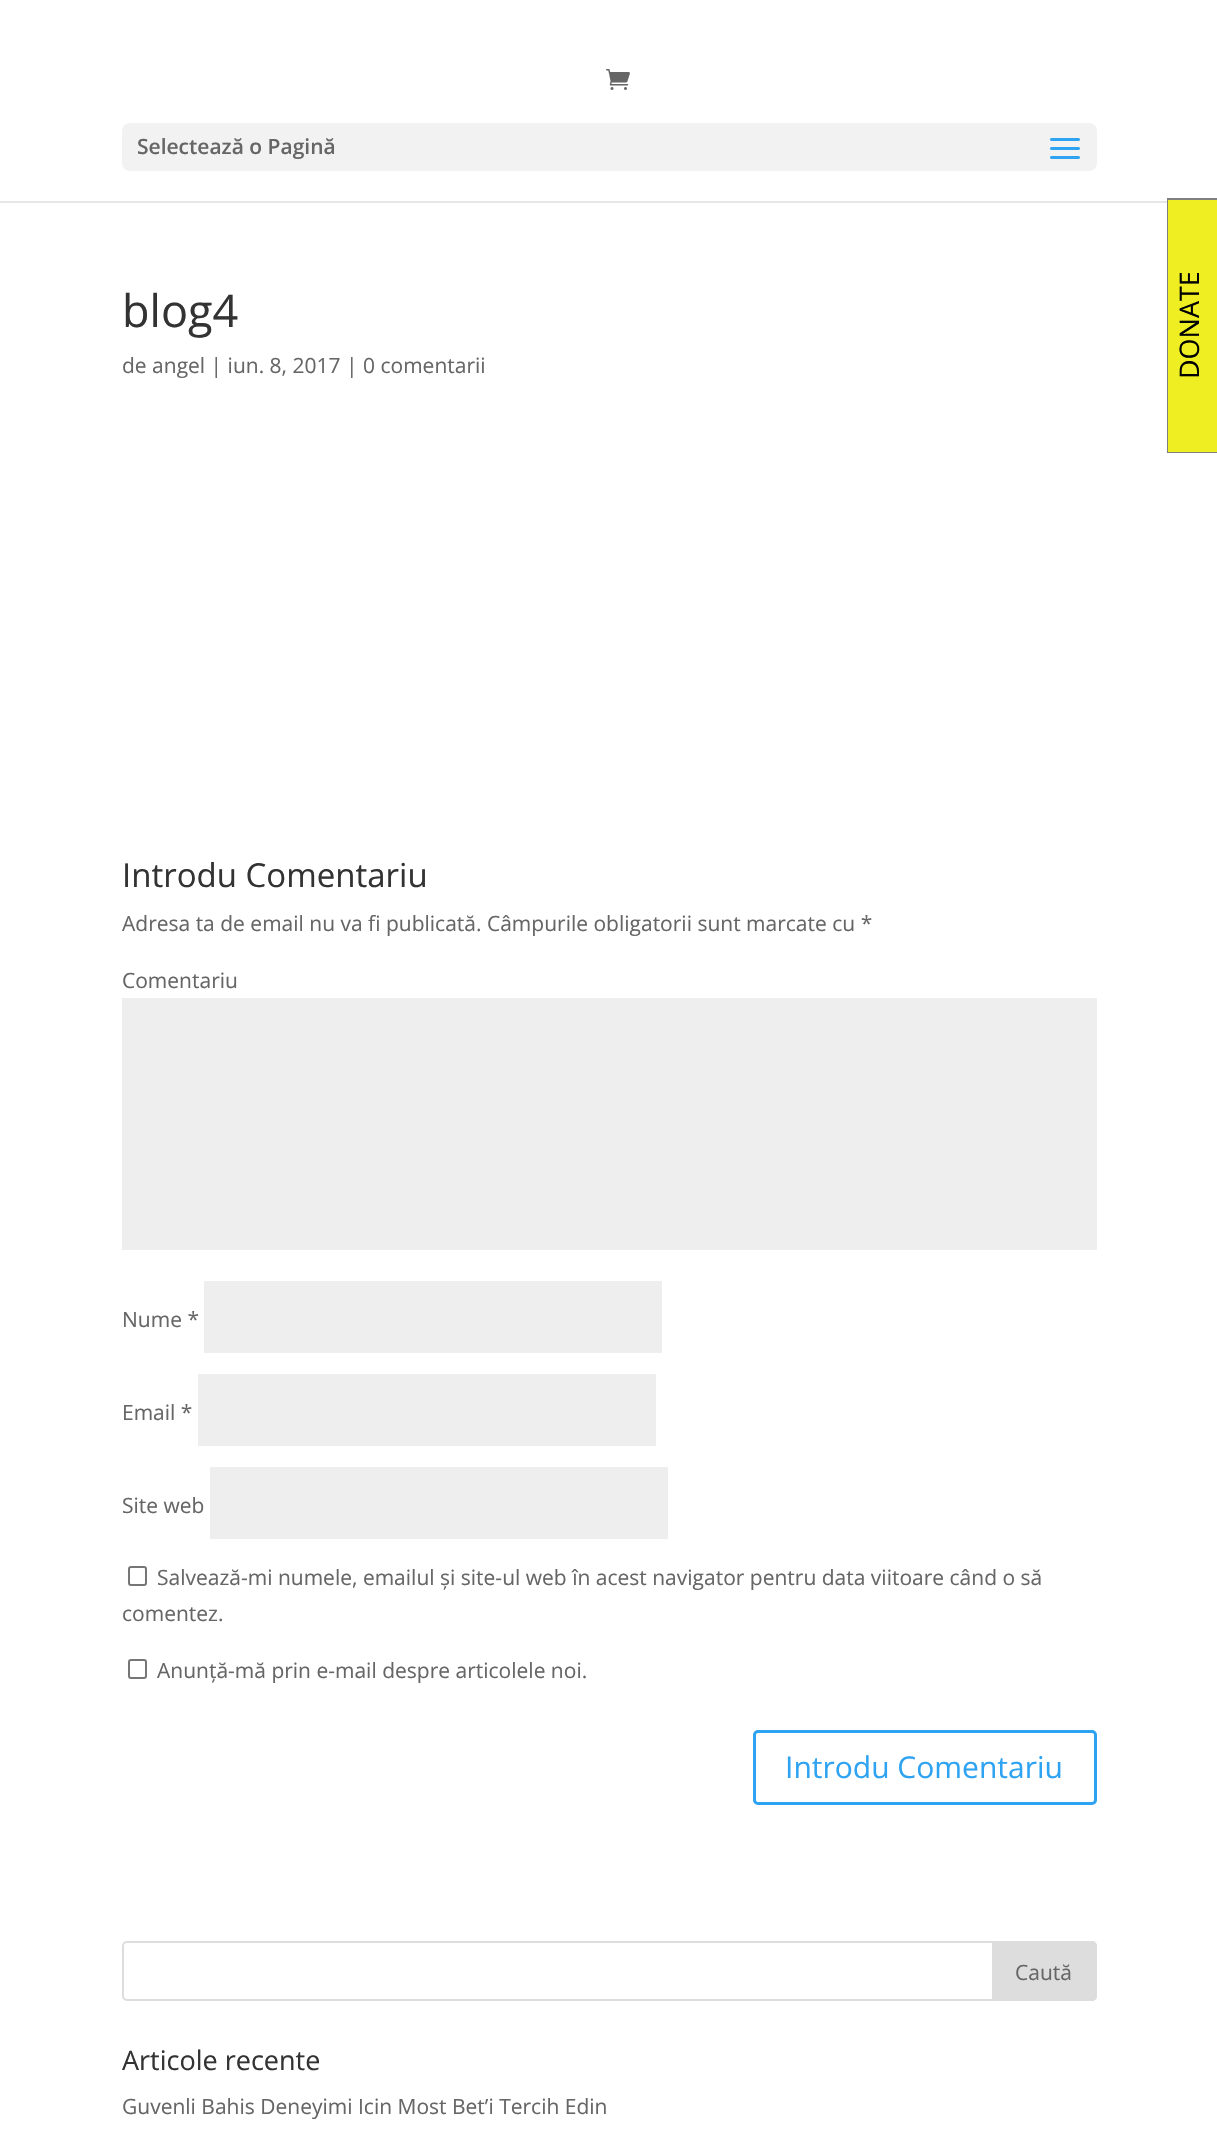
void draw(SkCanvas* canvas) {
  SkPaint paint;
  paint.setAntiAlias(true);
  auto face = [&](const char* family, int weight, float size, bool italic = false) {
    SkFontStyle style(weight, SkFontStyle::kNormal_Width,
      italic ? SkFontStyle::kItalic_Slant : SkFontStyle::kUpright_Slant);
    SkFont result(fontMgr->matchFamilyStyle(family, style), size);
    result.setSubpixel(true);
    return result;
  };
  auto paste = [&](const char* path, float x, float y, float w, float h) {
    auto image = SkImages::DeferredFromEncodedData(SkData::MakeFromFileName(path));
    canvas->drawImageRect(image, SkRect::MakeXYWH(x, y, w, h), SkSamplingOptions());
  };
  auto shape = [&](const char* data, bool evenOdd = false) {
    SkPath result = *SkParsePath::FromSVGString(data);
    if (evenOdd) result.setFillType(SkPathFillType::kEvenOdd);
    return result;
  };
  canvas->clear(0xffffffff);
  paint.setColor(0xffe6e6e6);
  canvas->drawRect(SkRect::MakeXYWH(0, 201, 1167, 2), paint);
  paste("img/1.png", 606, 69, 24, 21);
  paint.setColor(0xfff2f2f2);
  canvas->drawRoundRect(SkRect::MakeXYWH(122, 123, 975, 48), 8, 8, paint);
  paste("img/2.png", 1050, 138, 30, 21);
  {
    const struct { float x, y, w, h; SkColor color; } items[] = {
      {122, 998, 975, 252, 0xffeeeeee},
      {204, 1281, 458, 72, 0xffeeeeee},
      {198, 1374, 458, 72, 0xffeeeeee},
      {210, 1467, 458, 72, 0xffeeeeee},
    };
    for (auto [x, y, w, h, color] : items) {
      paint.setColor(color);
      canvas->drawRect(SkRect::MakeXYWH(x, y, w, h), paint);
    }
  }
  paint.setStroke(true);
  paint.setStrokeWidth(2);
  paint.setColor(0xff767676);
  canvas->drawRoundRect(SkRect::MakeXYWH(129, 1567, 17, 18), 2, 2, paint);
  canvas->drawRoundRect(SkRect::MakeXYWH(129, 1660, 17, 18), 2, 2, paint);
  paint.setStrokeWidth(3);
  paint.setColor(0xff2ea3f2);
  canvas->drawRoundRect(SkRect::MakeXYWH(754.5f, 1731.5f, 341, 72), 3.5f, 3.5f, paint);
  paint.setStrokeWidth(2);
  paint.setColor(0xffdddddd);
  canvas->drawRoundRect(SkRect::MakeXYWH(123, 1942, 973, 58), 4, 4, paint);
  paint.setStroke(false);
  canvas->drawPath(shape("M993 1942H1092C1094 1942 1096 1944 1096 1946V1996C1096 1998 1094 2000 1092 2000H993Z"), paint);
  paint.setStroke(true);
  canvas->drawPath(shape("M993 1942H1092C1094 1942 1096 1944 1096 1946V1996C1096 1998 1094 2000 1092 2000H993Z"), paint);
  paint.setStroke(false);
  {
    const struct { float x, y, w, h; SkColor color; } items[] = {
      {1168, 200, 49, 252, 0xffeeee22},
      {1167, 198, 1, 255, 0xff7f7f7f},
      {1167, 198, 50, 2, 0xff7f7f7f},
      {1167, 452, 50, 1, 0xff7f7f7f},
    };
    for (auto [x, y, w, h, color] : items) {
      paint.setColor(color);
      canvas->drawRect(SkRect::MakeXYWH(x, y, w, h), paint);
    }
  }
  auto f0 = face("Open Sans", 600, 21);
  paint.setColor(0xff666666);
  canvas->drawString("Selectează o Pagină", 137, 154, f0, paint);
  auto f1 = face("Open Sans", 400, 45);
  paint.setColor(0xff333333);
  canvas->drawString("blog4", 122, 327, f1, paint);
  auto f2 = face("Open Sans", 400, 21);
  paint.setColor(0xff666666);
  canvas->drawString("de angel | iun. 8, 2017 | 0 comentarii", 122, 373, f2, paint);
  auto f3 = face("Open Sans", 400, 33);
  paint.setColor(0xff333333);
  canvas->drawString("Introdu Comentariu", 122, 887, f3, paint);
  paint.setColor(0xff666666);
  {
    const struct { const char* s; float x, y; } items[] = {
      {"Adresa ta de email nu va fi publicată. Câmpurile obligatorii sunt marcate cu *", 122, 931},
      {"Comentariu", 122, 988},
      {"Nume *", 122, 1327},
      {"Email *", 122, 1420},
      {"Site web", 122, 1513},
      {"Salvează-mi numele, emailul și site-ul web în acest navigator pentru data viitoare când o să", 157, 1585},
      {"comentez.", 122, 1621},
      {"Anunță-mă prin e-mail despre articolele noi.", 157, 1678},
    };
    for (auto [s, x, y] : items) {
      canvas->drawString(s, x, y, f2, paint);
    }
  }
  auto f4 = face("Open Sans", 400, 30);
  paint.setColor(0xff2ea3f2);
  canvas->drawString("Introdu Comentariu", 785, 1778, f4, paint);
  paint.setColor(0xff666666);
  canvas->drawString("Caută", 1015, 1980, f2, paint);
  auto f5 = face("Open Sans", 400, 27);
  paint.setColor(0xff333333);
  canvas->drawString("Articole recente", 122, 2070, f5, paint);
  paint.setColor(0xff666666);
  canvas->drawString("Guvenli Bahis Deneyimi Icin Most Bet’i Tercih Edin", 122, 2114, f2, paint);
  paint.setColor(0xff000000);
  canvas->save();
  canvas->rotate(-90, 1199, 379);
  canvas->drawString("DONATE", 1199, 379, f5, paint);
  canvas->restore();
}
